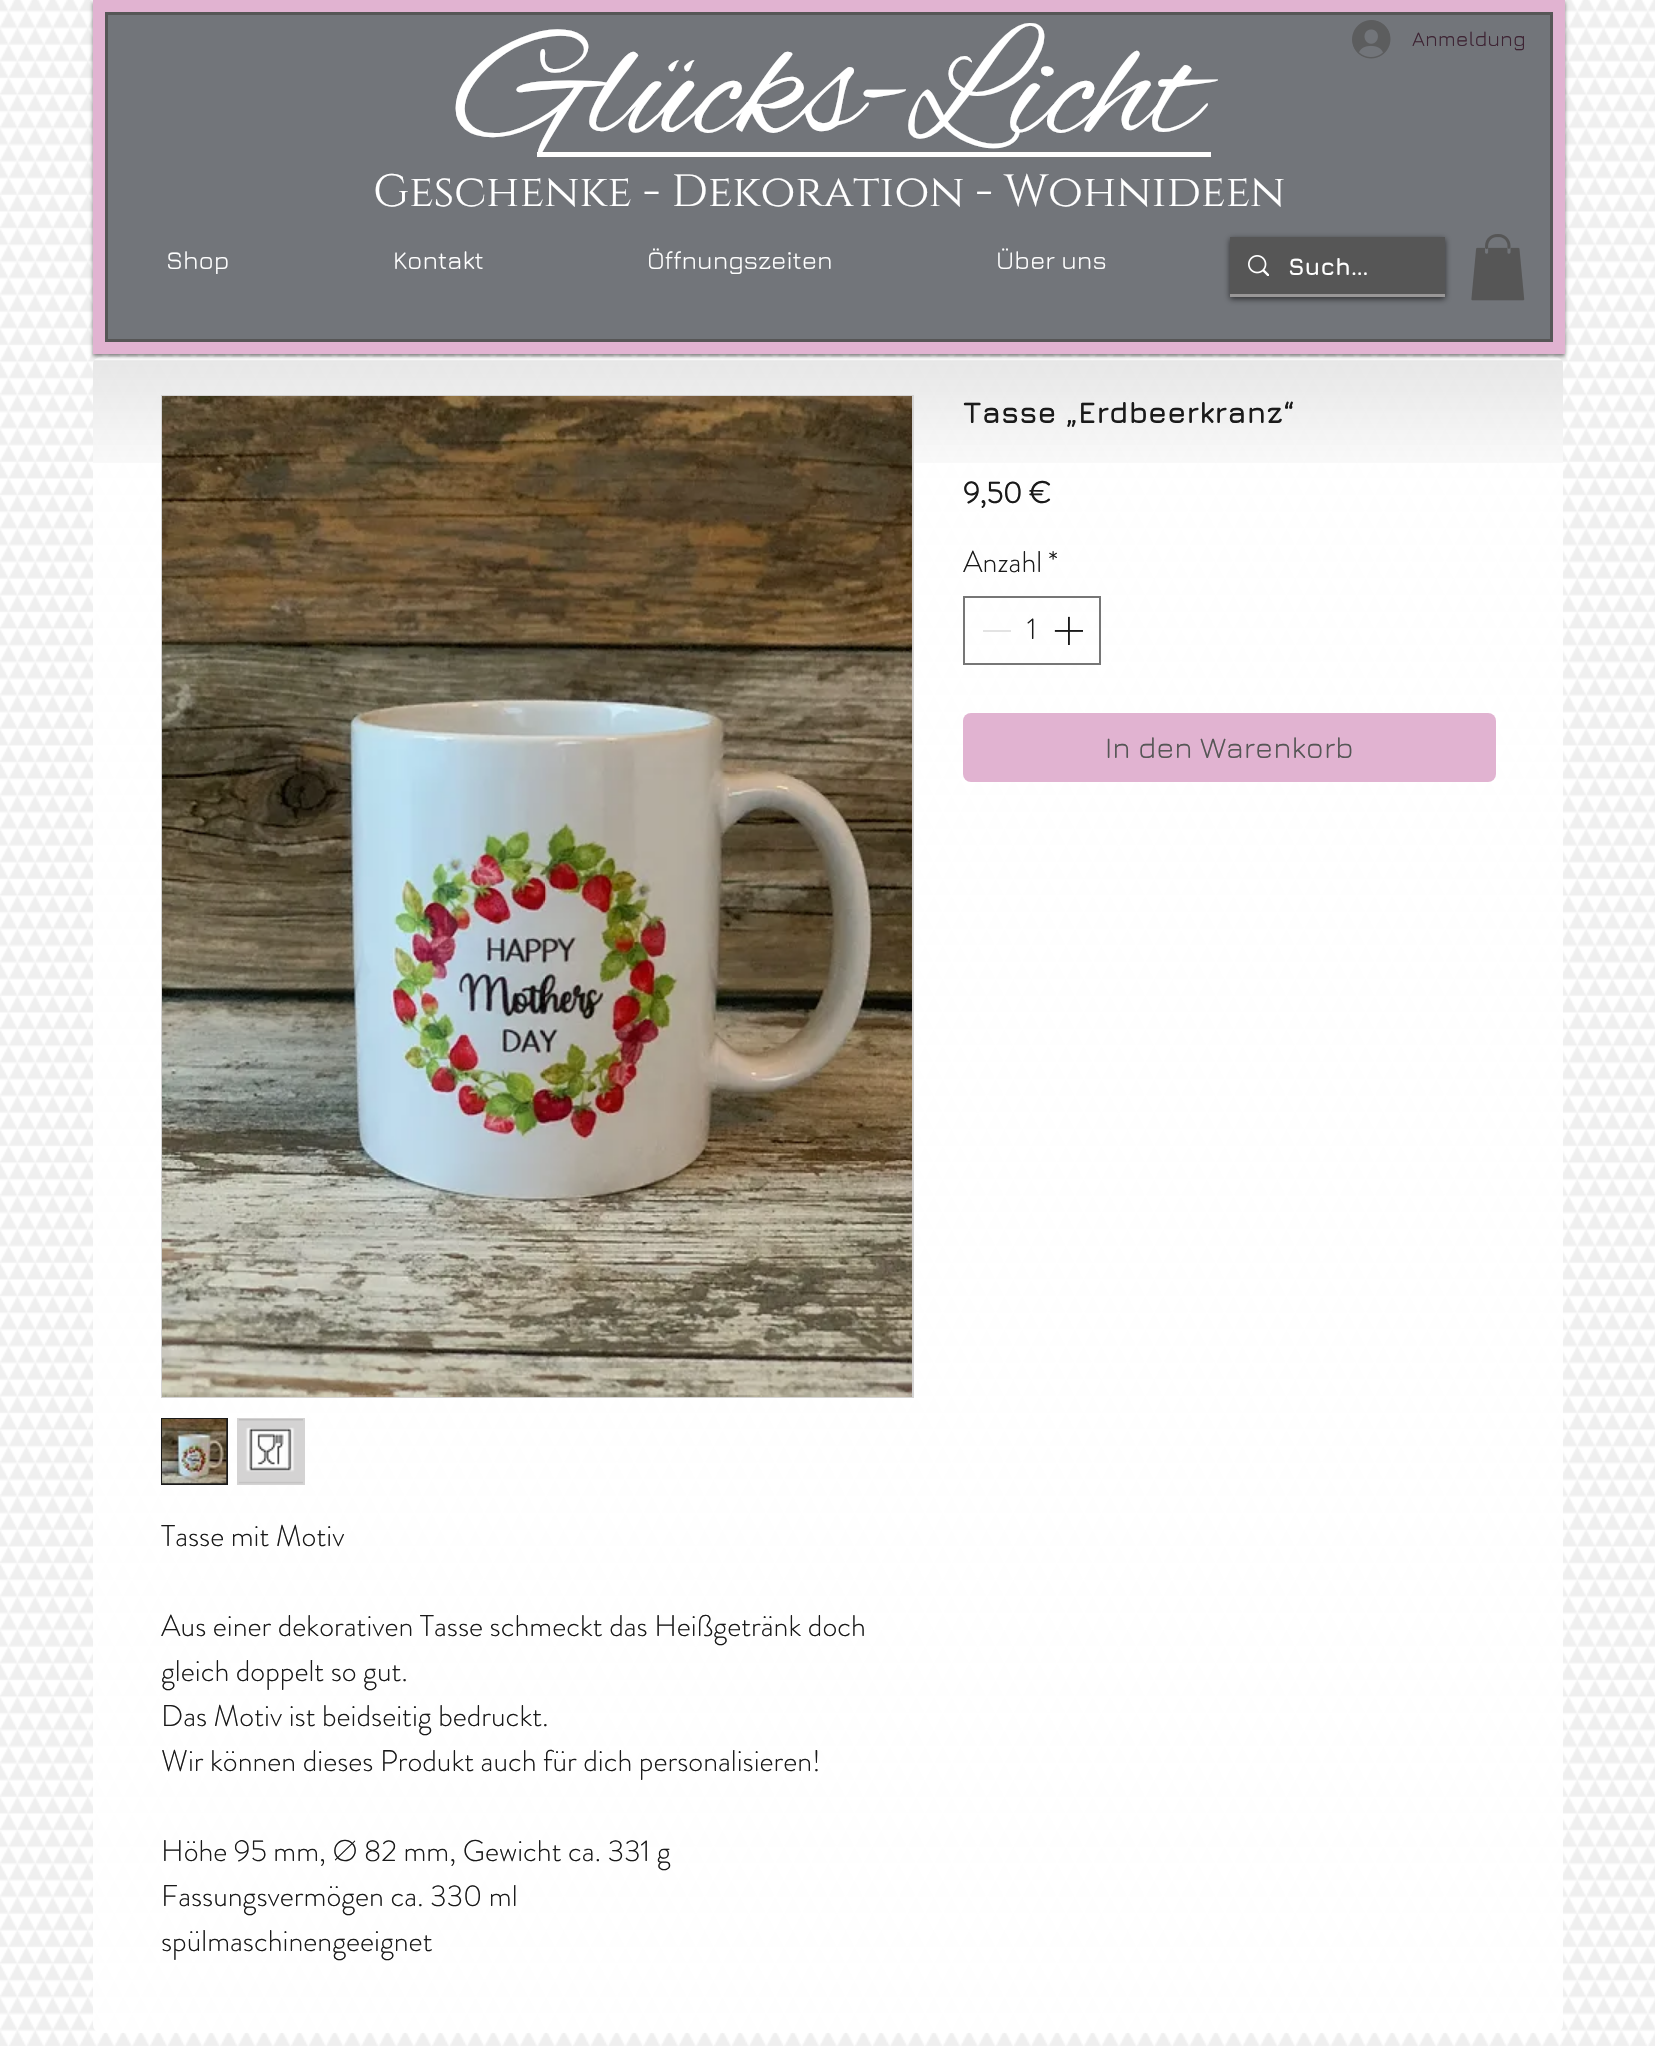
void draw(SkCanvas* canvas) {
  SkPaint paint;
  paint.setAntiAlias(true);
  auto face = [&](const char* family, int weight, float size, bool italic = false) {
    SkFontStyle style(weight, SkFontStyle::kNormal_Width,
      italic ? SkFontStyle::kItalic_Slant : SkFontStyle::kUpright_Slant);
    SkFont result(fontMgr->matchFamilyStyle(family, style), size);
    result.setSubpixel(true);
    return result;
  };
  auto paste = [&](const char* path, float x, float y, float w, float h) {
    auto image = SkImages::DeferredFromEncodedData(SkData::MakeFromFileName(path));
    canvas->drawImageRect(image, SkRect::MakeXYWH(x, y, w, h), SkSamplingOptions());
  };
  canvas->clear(0xffffffff);
  paste("img/1.png", 0, 0, 1655, 2046);
  paint.setColor(0xe6ffffff);
  canvas->drawRoundRect(SkRect::MakeXYWH(93, 357, 1470, 1676), 8, 8, paint);
  paste("img/5.png", 93, 360, 1470, 103);
  paint.setColor(0x80000000);
  paint.setMaskFilter(SkMaskFilter::MakeBlur(kNormal_SkBlurStyle, 2));
  canvas->drawRect(SkRect::MakeXYWH(93, 2, 1472, 354), paint);
  paint.setMaskFilter(nullptr);
  paint.setColor(0xffe1b3d1);
  canvas->drawRect(SkRect::MakeXYWH(93, 0, 1472, 354), paint);
  paint.setColor(0xff72757a);
  canvas->drawRect(SkRect::MakeXYWH(106.5f, 13.5f, 1445, 327), paint);
  paint.setStroke(true);
  paint.setStrokeWidth(3);
  paint.setColor(0xff565656);
  canvas->drawRect(SkRect::MakeXYWH(106.5f, 13.5f, 1445, 327), paint);
  paste("img/2.png", 1352, 20, 39, 39);
  paint.setStroke(false);
  paint.setColor(0xffffffff);
  canvas->drawRect(SkRect::MakeXYWH(537, 152, 674, 5), paint);
  paint.setColor(0x99000000);
  paint.setMaskFilter(SkMaskFilter::MakeBlur(kNormal_SkBlurStyle, 3));
  canvas->drawRect(SkRect::MakeXYWH(1230, 239, 215, 60), paint);
  paint.setMaskFilter(nullptr);
  paint.setColor(0xff999797);
  canvas->drawRect(SkRect::MakeXYWH(1230, 294, 215, 3), paint);
  paint.setColor(0xff565656);
  canvas->drawRect(SkRect::MakeXYWH(1230, 237, 215, 57), paint);
  paste("img/3.png", 1248, 255, 21, 21);
  paste("img/4.png", 1471, 234, 54, 67);
  paint.setStroke(true);
  paint.setStrokeWidth(2);
  paint.setColor(0xff767676);
  canvas->drawRect(SkRect::MakeXYWH(964, 597, 136, 67), paint);
  paint.setStroke(false);
  paint.setColor(0xffe3e3e3);
  canvas->drawRect(SkRect::MakeXYWH(983, 630, 28, 2), paint);
  paste("img/6.png", 1054, 616, 29, 29);
  paint.setColor(0xffe1b3d1);
  canvas->drawRoundRect(SkRect::MakeXYWH(963, 713, 533, 69), 8, 8, paint);
  paint.setStroke(true);
  paint.setColor(0xffd4d3d3);
  canvas->drawRect(SkRect::MakeXYWH(162, 396, 751, 1001), paint);
  paste("img/7.png", 162, 396, 750, 1001);
  paint.setColor(0xff1a1a1a);
  canvas->drawRect(SkRect::MakeXYWH(162, 1419, 65, 65), paint);
  paste("img/8.png", 162, 1419, 65, 65);
  paint.setStroke(false);
  paint.setColor(0xffd4d3d3);
  canvas->drawRect(SkRect::MakeXYWH(237, 1418, 68, 67), paint);
  paste("img/9.png", 238, 1419, 65, 65);
  auto f0 = face("Alex Brush", 400, 159);
  paint.setColor(0xffffffff);
  canvas->drawString("Glücks-Licht", 458, 131, f0, paint);
  auto f1 = face("Jura", 400, 21);
  paint.setColor(0xff3d2333);
  canvas->drawString("Anmeldung", 1412, 46, f1, paint);
  auto f2 = face("Cinzel", 400, 45);
  paint.setColor(0xffffffff);
  canvas->drawString("Geschenke - Dekoration - Wohnideen", 373, 206, f2, paint);
  auto f3 = face("Jura", 400, 25.5f);
  {
    const struct { const char* s; float x, y; } items[] = {
      {"Shop", 166, 269},
      {"Kontakt", 393, 269},
      {"Öffnungszeiten", 647, 269},
      {"Über uns", 996, 269},
    };
    for (auto [s, x, y] : items) {
      canvas->drawString(s, x, y, f3, paint);
    }
  }
  auto f4 = face("Jura", 700, 24);
  canvas->drawString("Such…", 1288, 275, f4, paint);
  auto f5 = face("Jura", 700, 30);
  paint.setColor(0xff1a1a1a);
  canvas->drawString("Tasse „Erdbeerkranz“", 963, 423, f5, paint);
  auto f6 = face("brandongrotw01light", 700, 30);
  canvas->drawString("9,50 €", 963, 503, f6, paint);
  auto f7 = face("brandongrotw01light", 300, 30);
  {
    const struct { const char* s; float x, y; } items[] = {
      {"Anzahl", 963, 572},
      {"*", 1048, 572},
      {"1", 1027, 639},
    };
    for (auto [s, x, y] : items) {
      canvas->drawString(s, x, y, f7, paint);
    }
  }
  auto f8 = face("Jura", 400, 30);
  paint.setColor(0xff565656);
  canvas->drawString("In den Warenkorb", 1105, 758, f8, paint);
  paint.setColor(0xff1a1a1a);
  {
    const struct { const char* s; float x, y; } items[] = {
      {"Tasse mit Motiv", 161, 1546},
      {"Aus einer dekorativen Tasse schmeckt das Heißgetränk doch", 161, 1636},
      {"gleich doppelt so gut.", 161, 1681},
      {"Das Motiv ist beidseitig bedruckt.", 161, 1726},
      {"Wir können dieses Produkt auch für dich personalisieren!", 161, 1771},
      {"Höhe 95 mm, Ø 82 mm, Gewicht ca. 331 g", 161, 1861},
      {"Fassungsvermögen ca. 330 ml", 161, 1906},
      {"spülmaschinengeeignet", 161, 1951},
    };
    for (auto [s, x, y] : items) {
      canvas->drawString(s, x, y, f7, paint);
    }
  }
}
